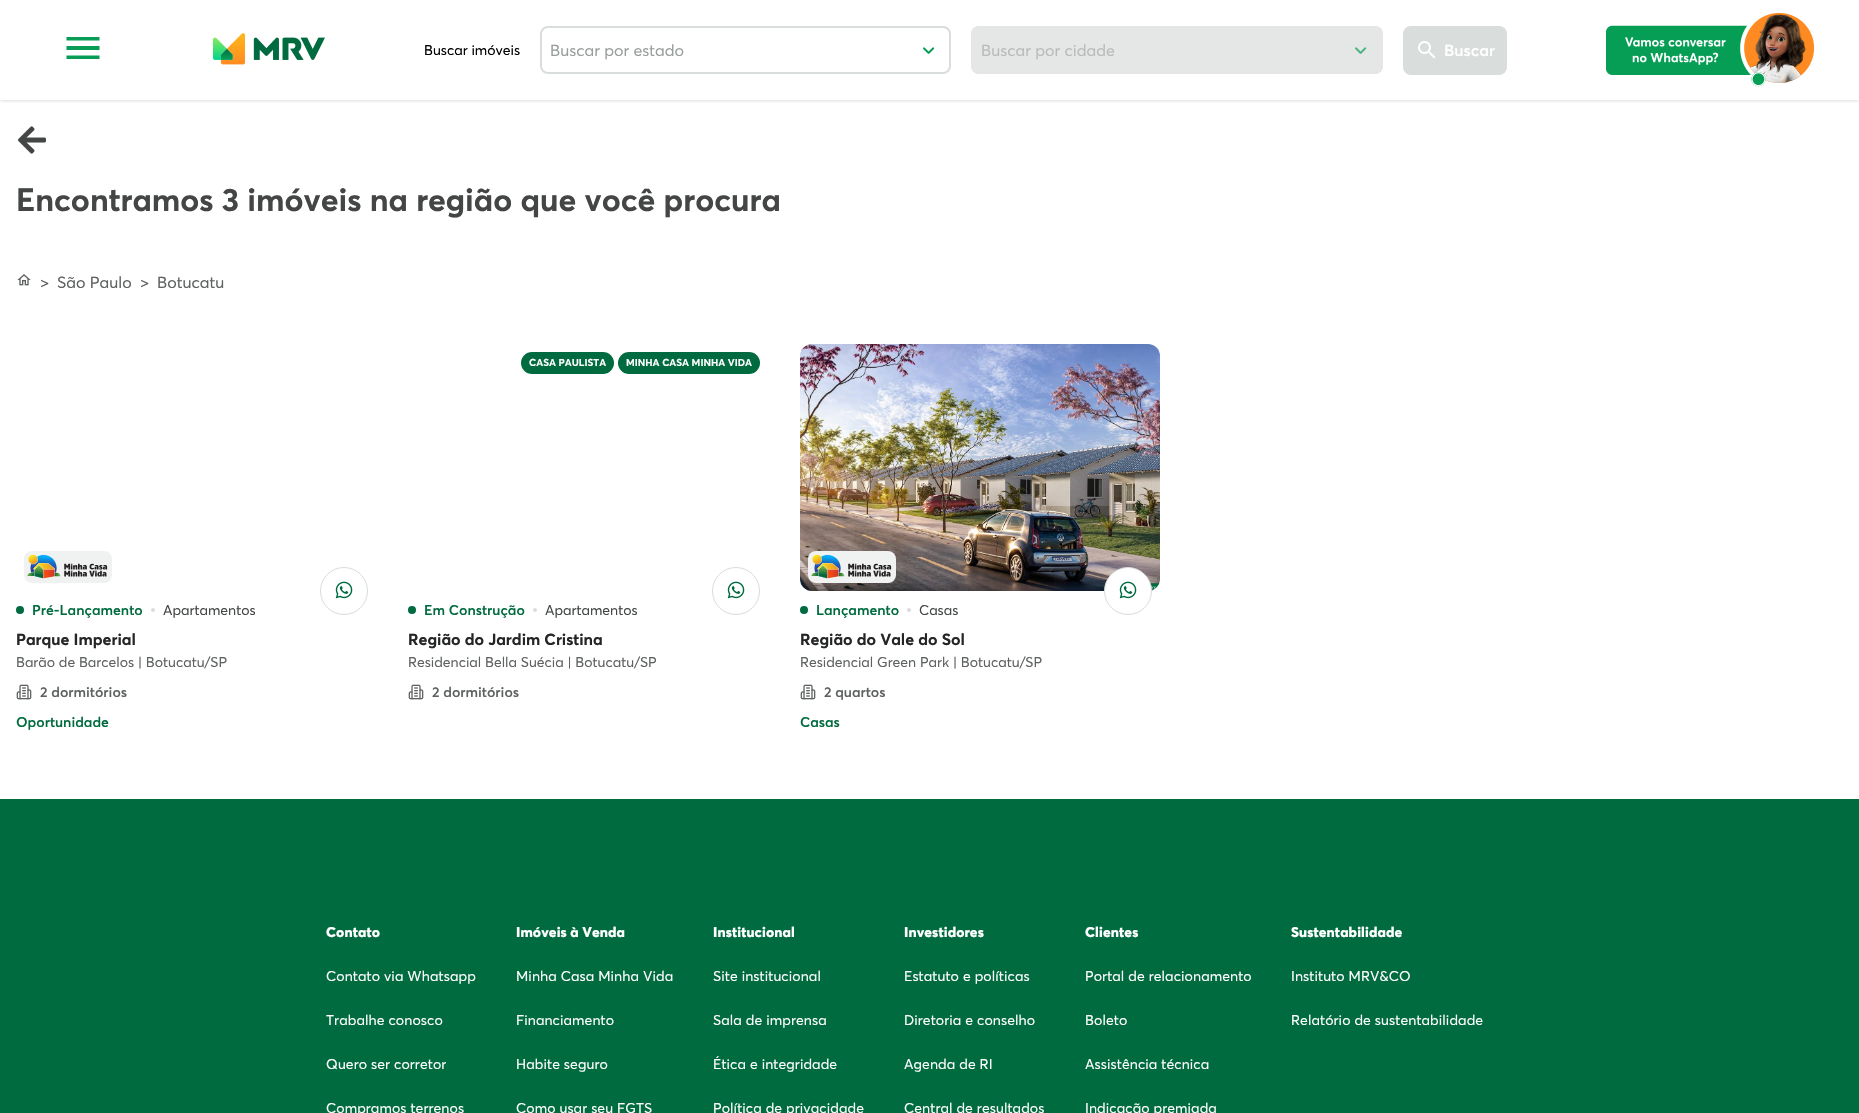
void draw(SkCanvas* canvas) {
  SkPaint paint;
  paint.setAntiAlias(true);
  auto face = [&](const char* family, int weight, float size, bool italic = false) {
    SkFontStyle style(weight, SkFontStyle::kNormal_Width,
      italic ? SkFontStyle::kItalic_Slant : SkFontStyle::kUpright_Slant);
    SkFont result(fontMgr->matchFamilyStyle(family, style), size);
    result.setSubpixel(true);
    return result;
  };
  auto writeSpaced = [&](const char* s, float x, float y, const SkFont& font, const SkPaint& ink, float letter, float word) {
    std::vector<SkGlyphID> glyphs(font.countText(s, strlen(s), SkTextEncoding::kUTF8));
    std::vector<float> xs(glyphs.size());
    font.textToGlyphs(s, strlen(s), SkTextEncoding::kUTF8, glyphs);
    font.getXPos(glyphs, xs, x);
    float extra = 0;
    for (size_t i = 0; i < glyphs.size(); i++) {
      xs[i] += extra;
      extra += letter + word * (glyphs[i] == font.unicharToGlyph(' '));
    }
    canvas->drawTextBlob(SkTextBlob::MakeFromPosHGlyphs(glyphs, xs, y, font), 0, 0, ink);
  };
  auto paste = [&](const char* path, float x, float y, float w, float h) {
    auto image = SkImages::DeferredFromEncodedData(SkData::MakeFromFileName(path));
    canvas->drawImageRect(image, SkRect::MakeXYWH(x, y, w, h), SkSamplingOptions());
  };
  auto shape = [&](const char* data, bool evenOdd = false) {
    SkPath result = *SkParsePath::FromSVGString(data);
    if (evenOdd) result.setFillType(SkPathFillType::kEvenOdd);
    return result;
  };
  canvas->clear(0xffffffff);
  canvas->save();
  canvas->clipRect(SkRect::MakeXYWH(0, 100, 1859, 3));
  paint.setColor(0x33000000);
  paint.setMaskFilter(SkMaskFilter::MakeBlur(kNormal_SkBlurStyle, 2));
  canvas->drawRect(SkRect::MakeXYWH(0, 0, 1859, 100), paint);
  paint.setMaskFilter(nullptr);
  canvas->restore();
  paint.setColor(0xff079d56);
  canvas->drawPath(shape("M66.5 59H99.5V55.5H66.5ZM66.5 50H99.5V46H66.5ZM66.5 37V40.5H99.5V37Z"), paint);
  paste("img/1.png", 213, 33, 112, 32);
  paste("img/2.png", 923, 47, 12, 7);
  paint.setStroke(true);
  paint.setStrokeWidth(2);
  paint.setColor(0xffd9dddb);
  canvas->drawRoundRect(SkRect::MakeXYWH(541, 27, 409, 46), 7, 7, paint);
  paint.setStroke(false);
  paint.setColor(0xffe4e7e6);
  canvas->drawRoundRect(SkRect::MakeXYWH(971, 26, 412, 48), 8, 8, paint);
  paste("img/3.png", 1355, 47, 12, 7);
  paint.setStroke(true);
  canvas->drawRoundRect(SkRect::MakeXYWH(972, 27, 410, 46), 7, 7, paint);
  paint.setStroke(false);
  paint.setColor(0xffd9dddb);
  canvas->drawRoundRect(SkRect::MakeXYWH(1403, 26, 104, 49), 8, 8, paint);
  paste("img/4.png", 1418, 41, 18, 18);
  paste("img/5.png", 1606, 12, 209, 75);
  paste("img/6.png", 18, 126, 28, 28);
  paste("img/7.png", 17, 274, 14, 12);
  paste("img/8.png", 24, 551, 88, 32);
  paint.setStroke(true);
  paint.setStrokeWidth(1);
  canvas->drawCircle(344, 591, 23.5f, paint);
  paste("img/9.png", 335, 581, 18, 18);
  paint.setStroke(false);
  paint.setColor(0xff006b3f);
  canvas->drawCircle(20, 610, 4, paint);
  paint.setColor(0xffd9dddb);
  canvas->drawCircle(153, 610, 2, paint);
  paste("img/10.png", 16, 684, 16, 16);
  paint.setColor(0xff006b3f);
  canvas->drawRoundRect(SkRect::MakeXYWH(521, 352, 93, 22), 11, 11, paint);
  canvas->drawRoundRect(SkRect::MakeXYWH(618, 352, 142, 22), 11, 11, paint);
  paint.setStroke(true);
  paint.setColor(0xffd9dddb);
  canvas->drawCircle(736, 591, 23.5f, paint);
  paste("img/9.png", 727, 581, 18, 18);
  paint.setStroke(false);
  paint.setColor(0xff006b3f);
  canvas->drawCircle(412, 610, 4, paint);
  paint.setColor(0xffd9dddb);
  canvas->drawCircle(535, 610, 2, paint);
  paste("img/10.png", 408, 684, 16, 16);
  paste("img/11.png", 800, 344, 360, 247);
  paste("img/12.png", 808, 551, 88, 32);
  paint.setColor(0xffffffff);
  canvas->drawCircle(1128, 591, 23.5f, paint);
  paint.setStroke(true);
  paint.setColor(0xffd9dddb);
  canvas->drawCircle(1128, 591, 23.5f, paint);
  paste("img/9.png", 1119, 581, 18, 18);
  paint.setStroke(false);
  paint.setColor(0xff006b3f);
  canvas->drawCircle(804, 610, 4, paint);
  paint.setColor(0xffd9dddb);
  canvas->drawCircle(909, 610, 2, paint);
  paste("img/10.png", 800, 684, 16, 16);
  paint.setColor(0xff006b3f);
  canvas->drawRect(SkRect::MakeXYWH(0, 799, 1859, 314), paint);
  auto f0 = face("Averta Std", 400, 14);
  paint.setColor(0xff000000);
  canvas->drawString("Buscar imóveis", 424, 55, f0, paint);
  auto f1 = face("Averta Std", 400, 16);
  paint.setColor(0xff999e9c);
  canvas->drawString("Buscar por estado", 550, 56, f1, paint);
  paint.setColor(0xffb8bbba);
  canvas->drawString("Buscar por cidade", 981, 56, f1, paint);
  auto f2 = face("Averta Std", 600, 16);
  paint.setColor(0xffffffff);
  canvas->drawString("Buscar", 1444, 56, f2, paint);
  auto f3 = face("Averta Std", 700, 32);
  paint.setColor(0xff434645);
  canvas->drawString("Encontramos 3 imóveis na região que você procura", 16, 211, f3, paint);
  paint.setColor(0xff5d615f);
  {
    const struct { const char* s; float x, y; } items[] = {
      {">", 40, 288},
      {"São Paulo", 57, 288},
      {">", 140, 288},
      {"Botucatu", 157, 288},
    };
    for (auto [s, x, y] : items) {
      canvas->drawString(s, x, y, f1, paint);
    }
  }
  auto f4 = face("Averta Std", 600, 14);
  paint.setColor(0xff006b3f);
  canvas->drawString("Pré-Lançamento", 32, 615, f4, paint);
  paint.setColor(0xff434645);
  canvas->drawString("Apartamentos", 163, 615, f0, paint);
  auto f5 = face("Averta Std", 700, 16);
  paint.setColor(0xff242625);
  canvas->drawString("Parque Imperial", 16, 645, f5, paint);
  paint.setColor(0xff5d615f);
  canvas->drawString("Barão de Barcelos | Botucatu/SP", 16, 667, f0, paint);
  canvas->drawString("2 dormitórios", 40, 697, f4, paint);
  paint.setColor(0xff006b3f);
  canvas->drawString("Oportunidade", 16, 727, f4, paint);
  auto f6 = face("Averta Std", 700, 10);
  paint.setColor(0xffffffff);
  canvas->drawString("CASA PAULISTA", 529, 366, f6, paint);
  canvas->drawString("MINHA CASA MINHA VIDA", 626, 366, f6, paint);
  paint.setColor(0xff006b3f);
  canvas->drawString("Em Construção", 424, 615, f4, paint);
  paint.setColor(0xff434645);
  canvas->drawString("Apartamentos", 545, 615, f0, paint);
  paint.setColor(0xff242625);
  canvas->drawString("Região do Jardim Cristina", 408, 645, f5, paint);
  paint.setColor(0xff5d615f);
  canvas->drawString("Residencial Bella Suécia | Botucatu/SP", 408, 667, f0, paint);
  canvas->drawString("2 dormitórios", 432, 697, f4, paint);
  paint.setColor(0xff006b3f);
  canvas->drawString("Lançamento", 816, 615, f4, paint);
  paint.setColor(0xff434645);
  canvas->drawString("Casas", 919, 615, f0, paint);
  paint.setColor(0xff242625);
  canvas->drawString("Região do Vale do Sol", 800, 645, f5, paint);
  paint.setColor(0xff5d615f);
  canvas->drawString("Residencial Green Park | Botucatu/SP", 800, 667, f0, paint);
  canvas->drawString("2 quartos", 824, 697, f4, paint);
  paint.setColor(0xff006b3f);
  canvas->drawString("Casas", 800, 727, f4, paint);
  auto f7 = face("Averta Std", 800, 14);
  paint.setColor(0xffffffff);
  writeSpaced("Contato", 326, 937, f7, paint, 0.1f, 0);
  {
    const struct { const char* s; float x, y; } items[] = {
      {"Contato via Whatsapp", 326, 981},
      {"Trabalhe conosco", 326, 1025},
      {"Quero ser corretor", 326, 1069},
      {"Compramos terrenos", 326, 1113},
    };
    for (auto [s, x, y] : items) {
      writeSpaced(s, x, y, f0, paint, 0.1f, 0);
    }
  }
  writeSpaced("Imóveis à Venda", 516, 937, f7, paint, 0.1f, 0);
  {
    const struct { const char* s; float x, y; } items[] = {
      {"Minha Casa Minha Vida", 516, 981},
      {"Financiamento", 516, 1025},
      {"Habite seguro", 516, 1069},
      {"Como usar seu FGTS", 516, 1113},
    };
    for (auto [s, x, y] : items) {
      writeSpaced(s, x, y, f0, paint, 0.1f, 0);
    }
  }
  writeSpaced("Institucional", 713, 937, f7, paint, 0.1f, 0);
  {
    const struct { const char* s; float x, y; } items[] = {
      {"Site institucional", 713, 981},
      {"Sala de imprensa", 713, 1025},
      {"Ética e integridade", 713, 1069},
      {"Política de privacidade", 713, 1113},
    };
    for (auto [s, x, y] : items) {
      writeSpaced(s, x, y, f0, paint, 0.1f, 0);
    }
  }
  writeSpaced("Investidores", 904, 937, f7, paint, 0.1f, 0);
  {
    const struct { const char* s; float x, y; } items[] = {
      {"Estatuto e políticas", 904, 981},
      {"Diretoria e conselho", 904, 1025},
      {"Agenda de RI", 904, 1069},
      {"Central de resultados", 904, 1113},
    };
    for (auto [s, x, y] : items) {
      writeSpaced(s, x, y, f0, paint, 0.1f, 0);
    }
  }
  writeSpaced("Clientes", 1085, 937, f7, paint, 0.1f, 0);
  {
    const struct { const char* s; float x, y; } items[] = {
      {"Portal de relacionamento", 1085, 981},
      {"Boleto", 1085, 1025},
      {"Assistência técnica", 1085, 1069},
      {"Indicação premiada", 1085, 1113},
    };
    for (auto [s, x, y] : items) {
      writeSpaced(s, x, y, f0, paint, 0.1f, 0);
    }
  }
  writeSpaced("Sustentabilidade", 1291, 937, f7, paint, 0.1f, 0);
  writeSpaced("Instituto MRV&CO", 1291, 981, f0, paint, 0.1f, 0);
  writeSpaced("Relatório de sustentabilidade", 1291, 1025, f0, paint, 0.1f, 0);
}
